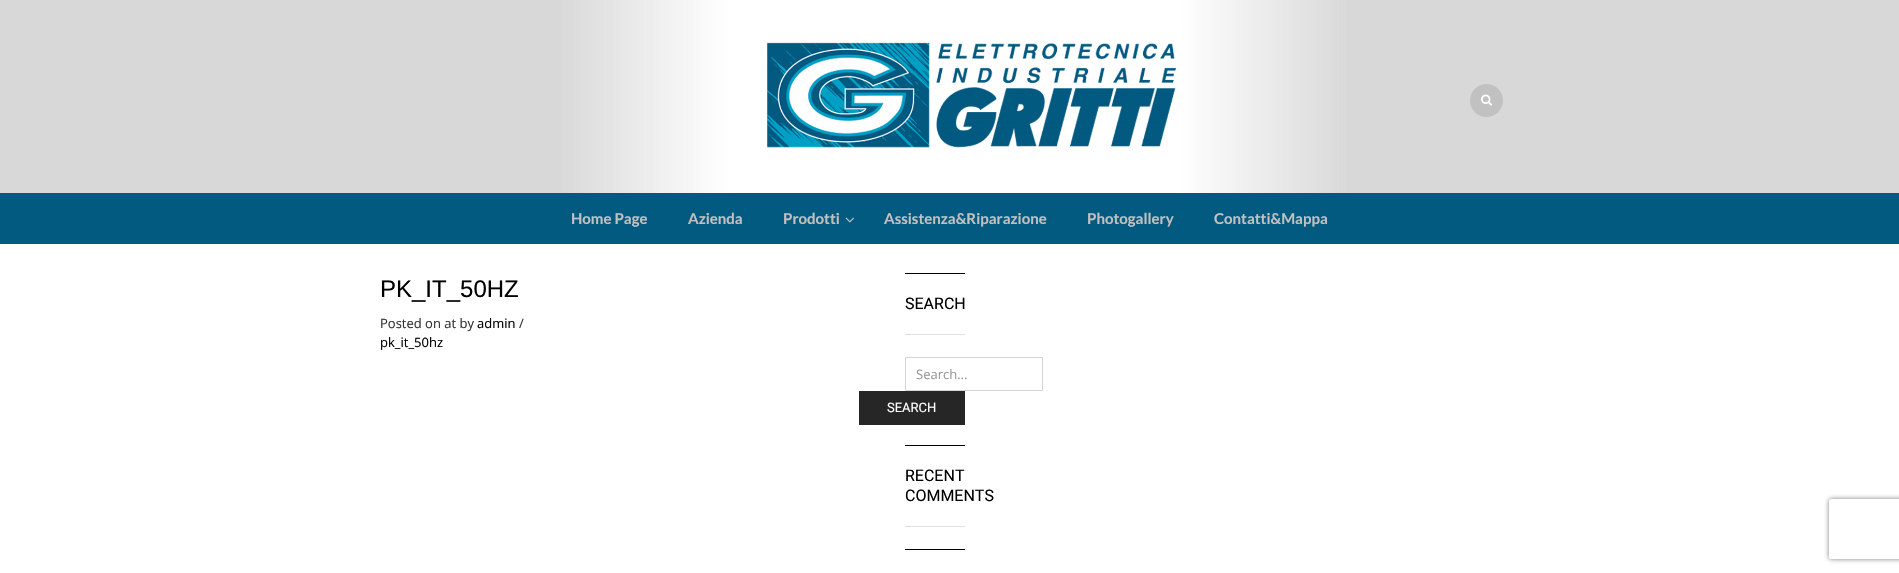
void draw(SkCanvas* canvas) {
  SkPaint paint;
  paint.setAntiAlias(true);
  auto face = [&](const char* family, int weight, float size, bool italic = false) {
    SkFontStyle style(weight, SkFontStyle::kNormal_Width,
      italic ? SkFontStyle::kItalic_Slant : SkFontStyle::kUpright_Slant);
    SkFont result(fontMgr->matchFamilyStyle(family, style), size);
    result.setSubpixel(true);
    return result;
  };
  auto paste = [&](const char* path, float x, float y, float w, float h) {
    auto image = SkImages::DeferredFromEncodedData(SkData::MakeFromFileName(path));
    canvas->drawImageRect(image, SkRect::MakeXYWH(x, y, w, h), SkSamplingOptions());
  };
  auto shape = [&](const char* data, bool evenOdd = false) {
    SkPath result = *SkParsePath::FromSVGString(data);
    if (evenOdd) result.setFillType(SkPathFillType::kEvenOdd);
    return result;
  };
  canvas->clear(0xffffffff);
  paste("img/1.png", 0, 0, 1899, 193);
  paste("img/2.png", 767, 42, 409, 106);
  paint.setColor(0xffc1c1c1);
  canvas->drawCircle(1486.5f, 100.5f, 16.5f, paint);
  paste("img/3.png", 1481, 94, 11, 12);
  paint.setColor(0xff035a81);
  canvas->drawRect(SkRect::MakeXYWH(0, 193, 1899, 51), paint);
  paste("img/4.png", 845, 217, 9, 6);
  paint.setColor(0xff000000);
  canvas->drawRect(SkRect::MakeXYWH(905, 273, 60, 1), paint);
  paint.setColor(0xffdddddd);
  canvas->drawRect(SkRect::MakeXYWH(905, 334, 60, 1), paint);
  paint.setStroke(true);
  paint.setStrokeWidth(1);
  paint.setColor(0xffd5d5d5);
  canvas->drawRect(SkRect::MakeXYWH(905.5f, 357.5f, 137, 33), paint);
  paint.setStroke(false);
  {
    const struct { float x, y, w, h; SkColor color; } items[] = {
      {859, 391, 106, 34, 0xff262626},
      {905, 445, 60, 1, 0xff000000},
      {905, 526, 60, 1, 0xffdddddd},
      {905, 549, 60, 1, 0xff000000},
    };
    for (auto [x, y, w, h, color] : items) {
      paint.setColor(color);
      canvas->drawRect(SkRect::MakeXYWH(x, y, w, h), paint);
    }
  }
  canvas->save();
  canvas->clipPath(shape("M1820 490H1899V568H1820ZM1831 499H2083C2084 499 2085 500 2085 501V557C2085 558 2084 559 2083 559H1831C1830 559 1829 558 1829 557V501C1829 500 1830 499 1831 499Z", true), true);
  paint.setColor(0xff808080);
  paint.setMaskFilter(SkMaskFilter::MakeBlur(kNormal_SkBlurStyle, 2.5f));
  canvas->drawRoundRect(SkRect::MakeXYWH(1829, 499, 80, 60), 2, 2, paint);
  paint.setMaskFilter(nullptr);
  canvas->restore();
  auto f0 = face("Lato", 700, 15);
  paint.setColor(0xffc1c1c1);
  {
    const struct { const char* s; float x, y; } items[] = {
      {"Home Page", 571, 224},
      {"Azienda", 688, 224},
      {"Prodotti", 783, 224},
      {"Assistenza&Riparazione", 884, 224},
      {"Photogallery", 1087, 224},
      {"Contatti&Mappa", 1214, 224},
    };
    for (auto [s, x, y] : items) {
      canvas->drawString(s, x, y, f0, paint);
    }
  }
  auto f1 = face("Liberation Sans", 400, 24);
  paint.setColor(0xff000000);
  canvas->drawString("PK_IT_50HZ", 380, 297, f1, paint);
  auto f2 = face("Open Sans", 400, 13);
  paint.setColor(0xff333333);
  canvas->drawString("Posted on at by", 380, 328, f2, paint);
  paint.setColor(0xff000000);
  canvas->drawString("admin", 477, 328, f2, paint);
  paint.setColor(0xff333333);
  canvas->drawString("/", 519, 328, f2, paint);
  paint.setColor(0xff000000);
  canvas->drawString("pk_it_50hz", 380, 347, f2, paint);
  auto f3 = face("Roboto", 400, 16);
  canvas->drawString("SEARCH", 905, 309, f3, paint);
  paint.setColor(0xff999999);
  canvas->drawString("Search...", 916, 379, f2, paint);
  auto f4 = face("Roboto", 400, 13);
  paint.setColor(0xffffffff);
  canvas->drawString("SEARCH", 887, 412, f4, paint);
  paint.setColor(0xff000000);
  canvas->drawString("RECENT", 905, 481, f3, paint);
  canvas->drawString("COMMENTS", 905, 501, f3, paint);
}
